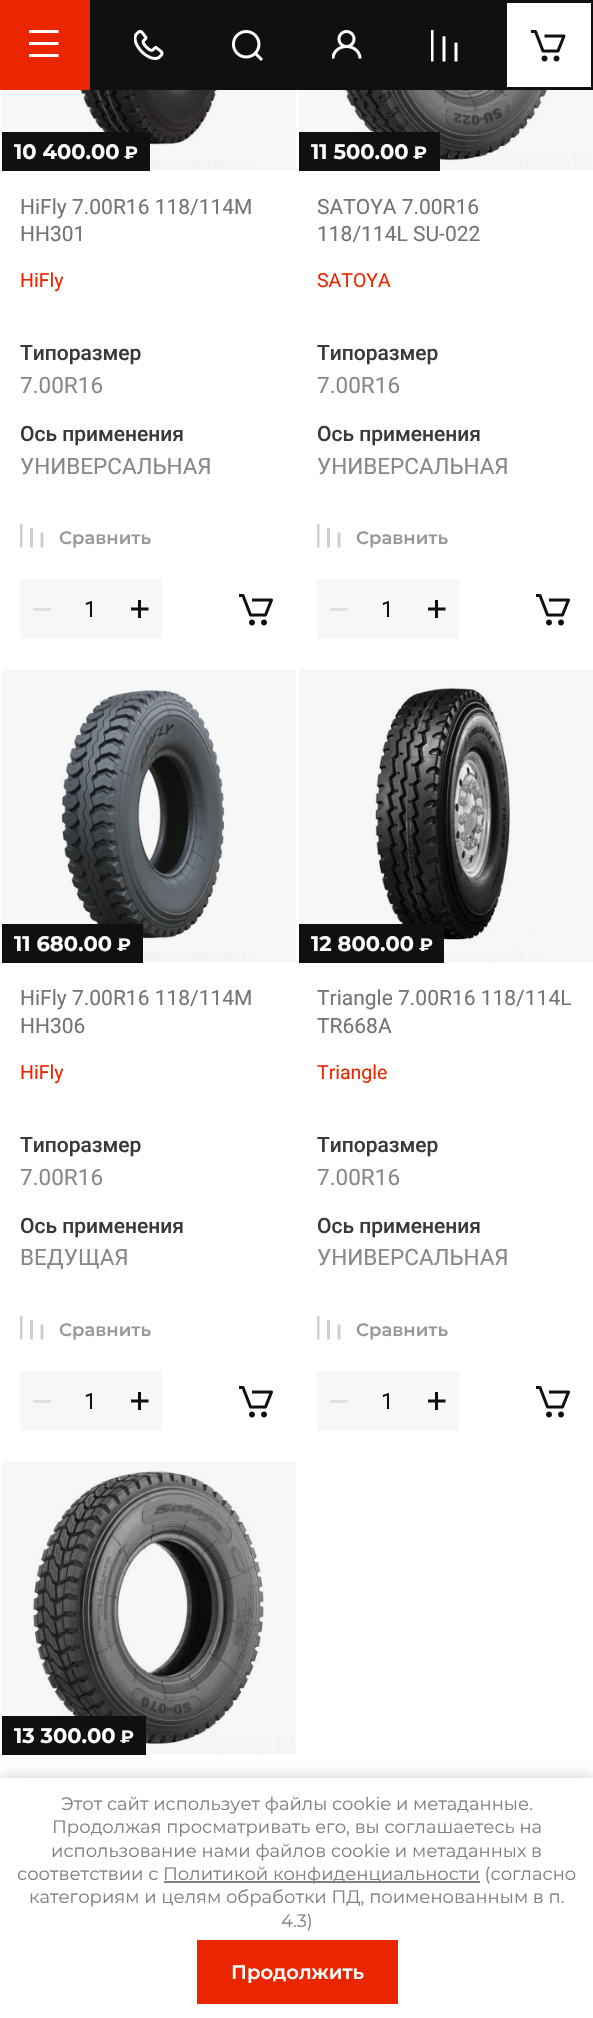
void draw(SkCanvas* canvas) {
  SkPaint paint;
  paint.setAntiAlias(true);
  auto face = [&](const char* family, int weight, float size, bool italic = false) {
    SkFontStyle style(weight, SkFontStyle::kNormal_Width,
      italic ? SkFontStyle::kItalic_Slant : SkFontStyle::kUpright_Slant);
    SkFont result(fontMgr->matchFamilyStyle(family, style), size);
    result.setSubpixel(true);
    return result;
  };
  auto paste = [&](const char* path, float x, float y, float w, float h) {
    auto image = SkImages::DeferredFromEncodedData(SkData::MakeFromFileName(path));
    canvas->drawImageRect(image, SkRect::MakeXYWH(x, y, w, h), SkSamplingOptions());
  };
  canvas->clear(0xffffffff);
  {
    const struct { float x, y, w, h; SkColor color; } items[] = {
      {2, 1461, 294, 294, 0xfff7f7f7},
      {299, 669, 294, 294, 0xfff7f7f7},
      {2, 669, 294, 294, 0xfff7f7f7},
      {299, 90, 294, 81, 0xfff7f7f7},
      {2, 90, 294, 81, 0xfff7f7f7},
      {90, 0, 414, 90, 0xff101010},
      {0, 0, 90, 90, 0xffeb2500},
    };
    for (auto [x, y, w, h, color] : items) {
      paint.setColor(color);
      canvas->drawRect(SkRect::MakeXYWH(x, y, w, h), paint);
    }
  }
  paste("img/1.png", 29, 30, 30, 27);
  paste("img/2.png", 134, 30, 30, 30);
  paste("img/3.png", 231, 30, 32, 31);
  paste("img/4.png", 332, 30, 30, 29);
  paste("img/5.png", 431, 30, 27, 32);
  paint.setStroke(true);
  paint.setStrokeWidth(3);
  paint.setColor(0xff101010);
  canvas->drawRect(SkRect::MakeXYWH(505.5f, 1.5f, 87, 87), paint);
  paste("img/6.png", 531, 30, 35, 32);
  paste("img/7.png", 70, 90, 187, 80);
  paint.setStroke(false);
  canvas->drawRect(SkRect::MakeXYWH(2, 132, 148, 39), paint);
  paste("img/8.png", 20, 524, 24, 24);
  paint.setColor(0xfff7f7f7);
  canvas->drawRect(SkRect::MakeXYWH(20, 579, 142, 60), paint);
  paint.setColor(0xffe0e0e0);
  canvas->drawRect(SkRect::MakeXYWH(33, 608, 18, 3), paint);
  paste("img/9.png", 131, 600, 18, 18);
  paste("img/10.png", 239, 594, 34, 32);
  paste("img/11.png", 330, 90, 261, 79);
  paint.setColor(0xff101010);
  canvas->drawRect(SkRect::MakeXYWH(299, 132, 141, 39), paint);
  paste("img/8.png", 317, 524, 24, 24);
  paint.setColor(0xfff7f7f7);
  canvas->drawRect(SkRect::MakeXYWH(317, 579, 142, 60), paint);
  paint.setColor(0xffe0e0e0);
  canvas->drawRect(SkRect::MakeXYWH(330, 608, 18, 3), paint);
  paste("img/9.png", 428, 600, 18, 18);
  paste("img/10.png", 536, 594, 34, 32);
  paste("img/12.png", 61, 690, 194, 272);
  paint.setColor(0xff101010);
  canvas->drawRect(SkRect::MakeXYWH(2, 924, 141, 39), paint);
  paste("img/8.png", 20, 1316, 24, 24);
  paint.setColor(0xfff7f7f7);
  canvas->drawRect(SkRect::MakeXYWH(20, 1371, 142, 60), paint);
  paint.setColor(0xffe0e0e0);
  canvas->drawRect(SkRect::MakeXYWH(33, 1400, 18, 3), paint);
  paste("img/9.png", 131, 1392, 18, 18);
  paste("img/10.png", 239, 1386, 34, 32);
  paste("img/13.png", 375, 686, 164, 276);
  paint.setColor(0xff101010);
  canvas->drawRect(SkRect::MakeXYWH(299, 924, 145, 39), paint);
  paste("img/8.png", 317, 1316, 24, 24);
  paint.setColor(0xfff7f7f7);
  canvas->drawRect(SkRect::MakeXYWH(317, 1371, 142, 60), paint);
  paint.setColor(0xffe0e0e0);
  canvas->drawRect(SkRect::MakeXYWH(330, 1400, 18, 3), paint);
  paste("img/9.png", 428, 1392, 18, 18);
  paste("img/10.png", 536, 1386, 34, 32);
  paste("img/14.png", 32, 1470, 262, 283);
  paint.setColor(0xff101010);
  canvas->drawRect(SkRect::MakeXYWH(2, 1716, 144, 39), paint);
  paint.setColor(0x3b000000);
  paint.setMaskFilter(SkMaskFilter::MakeBlur(kNormal_SkBlurStyle, 7.5f));
  canvas->drawRect(SkRect::MakeXYWH(0, 1779, 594, 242), paint);
  paint.setMaskFilter(nullptr);
  {
    const struct { float x, y, w, h; SkColor color; } items[] = {
      {0, 1778, 593, 240, 0xffffffff},
      {164, 1881, 316, 2, 0xff808080},
      {197, 1940, 201, 64, 0xffeb2500},
    };
    for (auto [x, y, w, h, color] : items) {
      paint.setColor(color);
      canvas->drawRect(SkRect::MakeXYWH(x, y, w, h), paint);
    }
  }
  auto f0 = face("Montserrat", 700, 21);
  paint.setColor(0xffffffff);
  canvas->drawString("10 400.00", 14, 159, f0, paint);
  auto f1 = face("Montserrat", 700, 18);
  canvas->drawString("₽", 124, 159, f1, paint);
  auto f2 = face("Roboto", 400, 21);
  paint.setColor(0xff747474);
  canvas->drawString("HiFly 7.00R16 118/114M", 20, 214, f2, paint);
  canvas->drawString("HH301", 20, 241, f2, paint);
  auto f3 = face("Roboto", 400, 19.5f);
  paint.setColor(0xffeb2500);
  canvas->drawString("HiFly", 20, 287, f3, paint);
  auto f4 = face("Roboto", 500, 21);
  paint.setColor(0xff393939);
  canvas->drawString("Типоразмер", 20, 360, f4, paint);
  auto f5 = face("Roboto", 400, 22.5f);
  paint.setColor(0xff888888);
  canvas->drawString("7.00R16", 20, 393, f5, paint);
  paint.setColor(0xff393939);
  canvas->drawString("Ось применения", 20, 441, f4, paint);
  paint.setColor(0xff888888);
  canvas->drawString("УНИВЕРСАЛЬНАЯ", 20, 474, f5, paint);
  auto f6 = face("Montserrat", 600, 18);
  paint.setColor(0xff999999);
  canvas->drawString("Сравнить", 59, 544, f6, paint);
  paint.setColor(0xff101010);
  canvas->drawString("1", 84, 617, f5, paint);
  paint.setColor(0xffffffff);
  canvas->drawString("11 500.00", 311, 159, f0, paint);
  canvas->drawString("₽", 413, 159, f1, paint);
  paint.setColor(0xff747474);
  canvas->drawString("SATOYA 7.00R16", 317, 214, f2, paint);
  canvas->drawString("118/114L SU-022", 317, 241, f2, paint);
  paint.setColor(0xffeb2500);
  canvas->drawString("SATOYA", 317, 287, f3, paint);
  paint.setColor(0xff393939);
  canvas->drawString("Типоразмер", 317, 360, f4, paint);
  paint.setColor(0xff888888);
  canvas->drawString("7.00R16", 317, 393, f5, paint);
  paint.setColor(0xff393939);
  canvas->drawString("Ось применения", 317, 441, f4, paint);
  paint.setColor(0xff888888);
  canvas->drawString("УНИВЕРСАЛЬНАЯ", 317, 474, f5, paint);
  paint.setColor(0xff999999);
  canvas->drawString("Сравнить", 356, 544, f6, paint);
  paint.setColor(0xff101010);
  canvas->drawString("1", 381, 617, f5, paint);
  paint.setColor(0xffffffff);
  canvas->drawString("11 680.00", 14, 951, f0, paint);
  canvas->drawString("₽", 117, 951, f1, paint);
  paint.setColor(0xff747474);
  canvas->drawString("HiFly 7.00R16 118/114M", 20, 1005, f2, paint);
  canvas->drawString("HH306", 20, 1033, f2, paint);
  paint.setColor(0xffeb2500);
  canvas->drawString("HiFly", 20, 1079, f3, paint);
  paint.setColor(0xff393939);
  canvas->drawString("Типоразмер", 20, 1152, f4, paint);
  paint.setColor(0xff888888);
  canvas->drawString("7.00R16", 20, 1185, f5, paint);
  paint.setColor(0xff393939);
  canvas->drawString("Ось применения", 20, 1233, f4, paint);
  paint.setColor(0xff888888);
  canvas->drawString("ВЕДУЩАЯ", 20, 1265, f5, paint);
  paint.setColor(0xff999999);
  canvas->drawString("Сравнить", 59, 1336, f6, paint);
  paint.setColor(0xff101010);
  canvas->drawString("1", 84, 1409, f5, paint);
  paint.setColor(0xffffffff);
  canvas->drawString("12 800.00", 311, 951, f0, paint);
  canvas->drawString("₽", 419, 951, f1, paint);
  paint.setColor(0xff747474);
  canvas->drawString("Triangle 7.00R16 118/114L", 317, 1005, f2, paint);
  canvas->drawString("TR668A", 317, 1033, f2, paint);
  paint.setColor(0xffeb2500);
  canvas->drawString("Triangle", 317, 1079, f3, paint);
  paint.setColor(0xff393939);
  canvas->drawString("Типоразмер", 317, 1152, f4, paint);
  paint.setColor(0xff888888);
  canvas->drawString("7.00R16", 317, 1185, f5, paint);
  paint.setColor(0xff393939);
  canvas->drawString("Ось применения", 317, 1233, f4, paint);
  paint.setColor(0xff888888);
  canvas->drawString("УНИВЕРСАЛЬНАЯ", 317, 1265, f5, paint);
  paint.setColor(0xff999999);
  canvas->drawString("Сравнить", 356, 1336, f6, paint);
  paint.setColor(0xff101010);
  canvas->drawString("1", 381, 1409, f5, paint);
  paint.setColor(0xffffffff);
  canvas->drawString("13 300.00", 14, 1743, f0, paint);
  canvas->drawString("₽", 120, 1743, f1, paint);
  auto f7 = face("Montserrat", 400, 18);
  paint.setColor(0xff808080);
  {
    const struct { const char* s; float x, y; } items[] = {
      {"Этот сайт использует файлы cookie и метаданные.", 61, 1810},
      {"Продолжая просматривать его, вы соглашаетесь на", 52, 1833},
      {"использование нами файлов cookie и метаданных в", 51, 1857},
      {"соответствии с", 17, 1880},
      {"Политикой конфиденциальности (согласно", 163, 1880},
      {"категориям и целям обработки ПД, поименованным в п.", 29, 1903},
      {"4.3)", 281, 1927},
    };
    for (auto [s, x, y] : items) {
      canvas->drawString(s, x, y, f7, paint);
    }
  }
  auto f8 = face("Montserrat", 600, 19.5f);
  paint.setColor(0xffffffff);
  canvas->drawString("Продолжить", 231, 1979, f8, paint);
}
